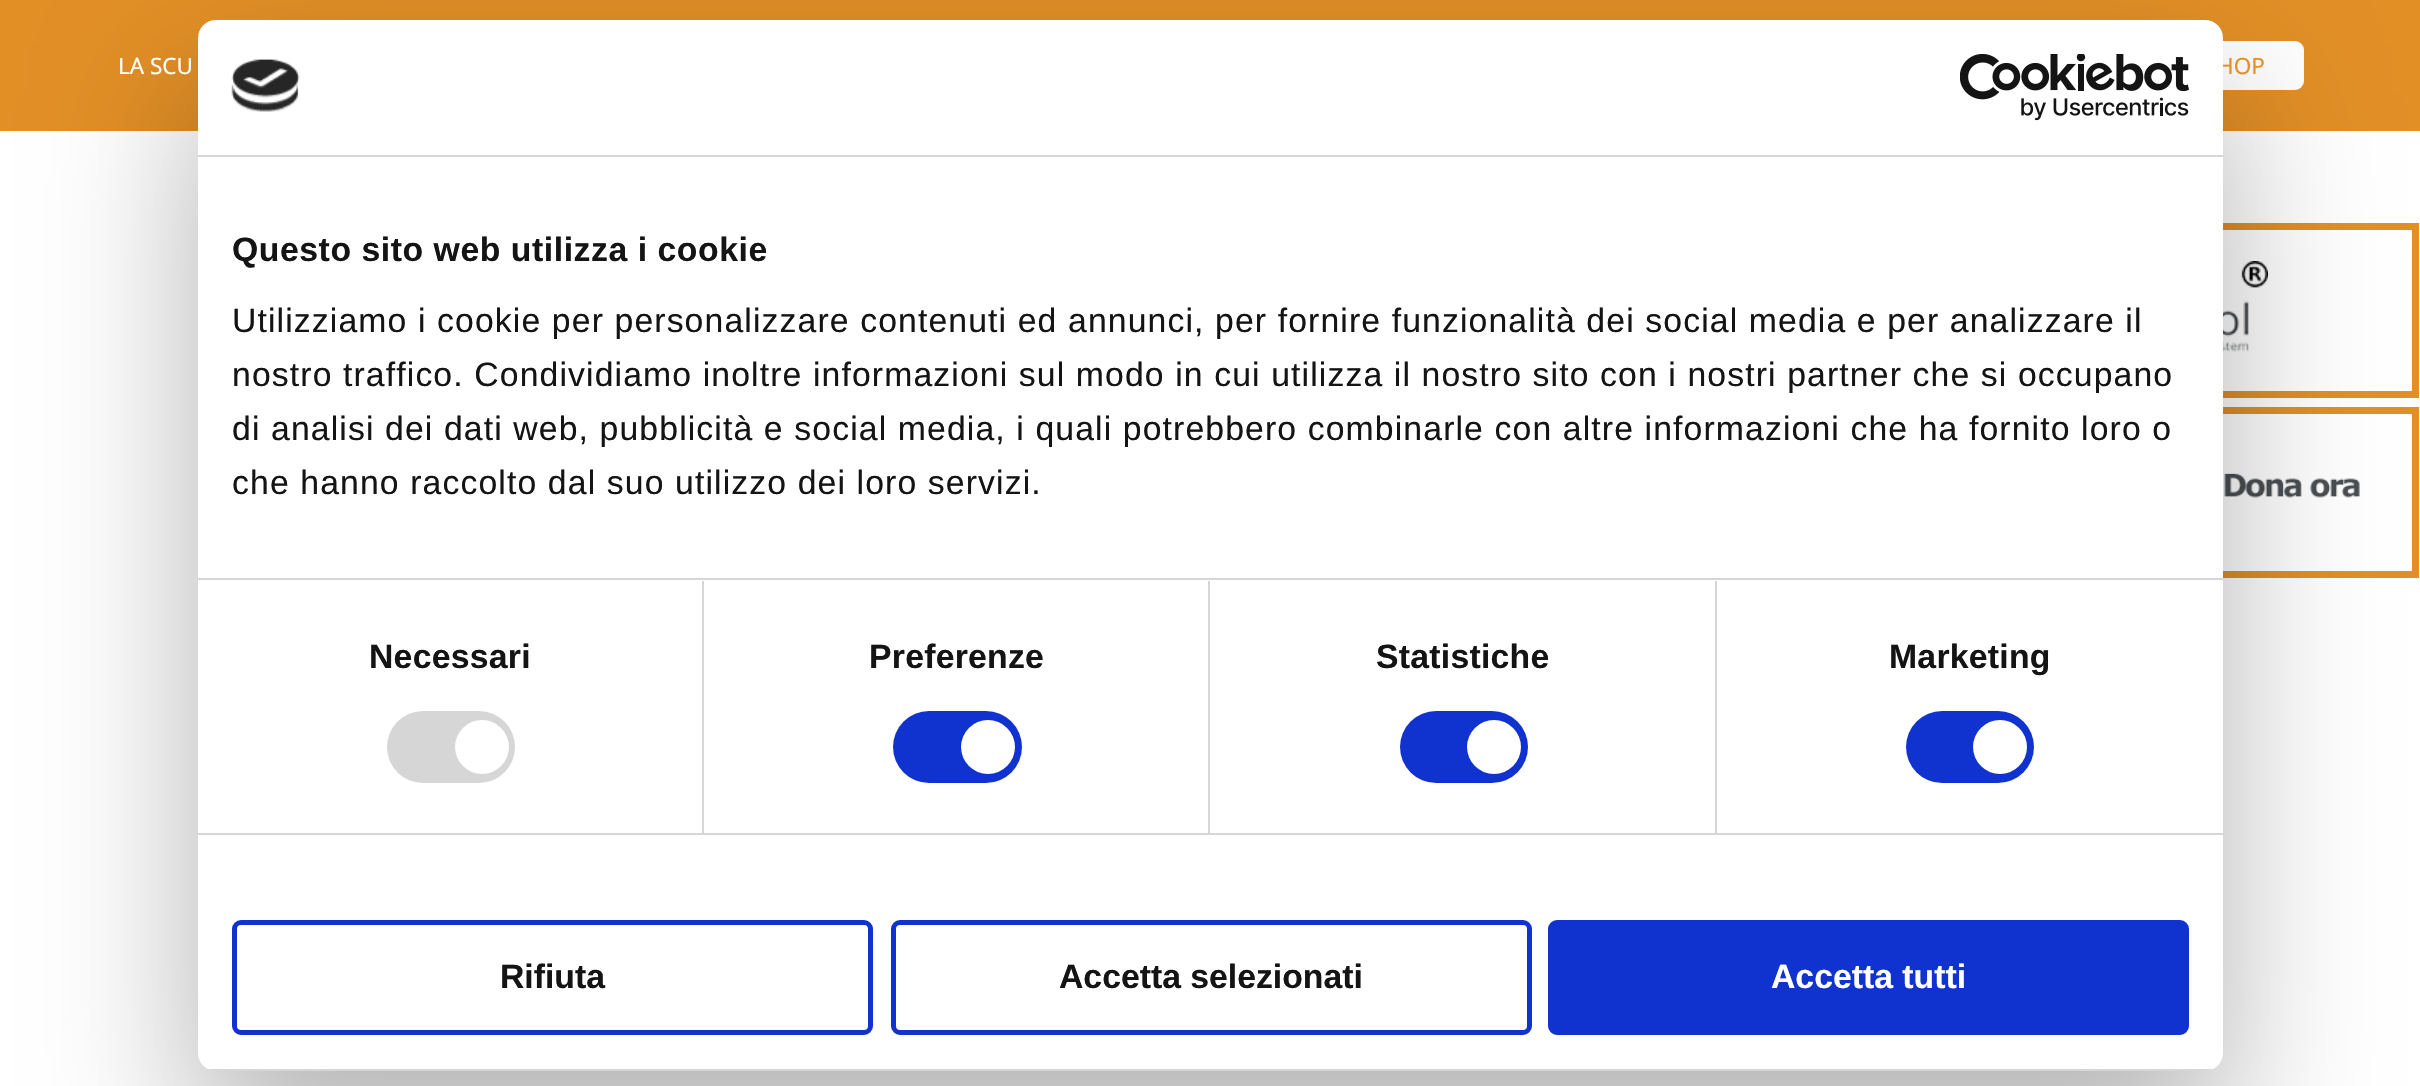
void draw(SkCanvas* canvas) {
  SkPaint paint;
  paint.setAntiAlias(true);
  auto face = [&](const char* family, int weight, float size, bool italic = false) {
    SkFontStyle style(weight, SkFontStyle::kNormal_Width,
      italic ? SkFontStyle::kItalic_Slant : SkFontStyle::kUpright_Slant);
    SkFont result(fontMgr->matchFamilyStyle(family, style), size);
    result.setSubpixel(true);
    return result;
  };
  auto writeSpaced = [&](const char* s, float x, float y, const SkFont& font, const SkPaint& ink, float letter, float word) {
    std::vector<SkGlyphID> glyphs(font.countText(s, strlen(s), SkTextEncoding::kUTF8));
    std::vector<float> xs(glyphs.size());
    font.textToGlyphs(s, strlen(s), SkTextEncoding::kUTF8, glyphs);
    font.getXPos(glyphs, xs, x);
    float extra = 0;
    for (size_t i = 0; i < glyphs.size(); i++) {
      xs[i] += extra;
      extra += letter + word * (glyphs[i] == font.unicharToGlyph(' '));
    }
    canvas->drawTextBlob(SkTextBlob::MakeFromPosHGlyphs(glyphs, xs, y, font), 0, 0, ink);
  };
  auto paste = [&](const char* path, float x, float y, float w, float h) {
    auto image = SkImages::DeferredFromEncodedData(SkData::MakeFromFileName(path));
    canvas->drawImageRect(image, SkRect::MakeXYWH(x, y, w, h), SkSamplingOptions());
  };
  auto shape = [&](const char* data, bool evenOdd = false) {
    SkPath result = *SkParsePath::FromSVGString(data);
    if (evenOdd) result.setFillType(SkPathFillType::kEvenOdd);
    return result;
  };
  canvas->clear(0xffffffff);
  paint.setColor(0xffe28f26);
  canvas->drawRect(SkRect::MakeXYWH(0, 0, 2420, 131), paint);
  paint.setColor(0xffffffff);
  canvas->drawRoundRect(SkRect::MakeXYWH(2167, 41, 137, 49), 9, 9, paint);
  paint.setStroke(true);
  paint.setStrokeWidth(7);
  paint.setColor(0xffe28f26);
  canvas->drawRect(SkRect::MakeXYWH(2033.5f, 226.5f, 382, 168), paint);
  paste("img/1.png", 2223, 261, 45, 91);
  canvas->drawRect(SkRect::MakeXYWH(2033.5f, 410.5f, 382, 164), paint);
  paste("img/2.png", 2224, 473, 136, 25);
  paint.setStroke(false);
  paint.setColor(0x4d000000);
  paint.setMaskFilter(SkMaskFilter::MakeBlur(kNormal_SkBlurStyle, 76.5f));
  canvas->drawRoundRect(SkRect::MakeXYWH(198, 92, 2025, 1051), 18, 18, paint);
  paint.setMaskFilter(nullptr);
  auto f0 = face("Noto Sans", 400, 22.5f);
  paint.setColor(0xffffffff);
  canvas->drawString("LA SCU", 118, 74, f0, paint);
  paint.setColor(0xffe28f26);
  canvas->drawString("HOP", 2217, 74, f0, paint);
  paint.setColor(0xffffffff);
  canvas->drawRoundRect(SkRect::MakeXYWH(198, 20, 2025, 1051), 18, 18, paint);
  paint.setColor(0xffd6d6d6);
  canvas->drawRect(SkRect::MakeXYWH(198, 155, 2025, 2), paint);
  paste("img/3.png", 231, 59, 69, 53);
  paste("img/4.png", 1960, 54, 229, 67);
  canvas->drawRect(SkRect::MakeXYWH(198, 578, 2025, 2), paint);
  auto f1 = face("Liberation Sans", 700, 33.75f);
  paint.setColor(0xff141414);
  writeSpaced("Questo sito web utilizza i cookie", 232, 261, f1, paint, 0.55f, 0);
  auto f2 = face("Liberation Sans", 400, 33.75f);
  {
    const struct { const char* s; float x, y; } items[] = {
      {"Utilizziamo i cookie per personalizzare contenuti ed annunci, per fornire funzionalità dei social media e per analizzare il", 232, 332},
      {"nostro traffico. Condividiamo inoltre informazioni sul modo in cui utilizza il nostro sito con i nostri partner che si occupano", 232, 386},
      {"di analisi dei dati web, pubblicità e social media, i quali potrebbero combinarle con altre informazioni che ha fornito loro o", 232, 440},
      {"che hanno raccolto dal suo utilizzo dei loro servizi.", 232, 494},
    };
    for (auto [s, x, y] : items) {
      writeSpaced(s, x, y, f2, paint, 1.12f, 0);
    }
  }
  paint.setColor(0xffd6d6d6);
  canvas->drawRect(SkRect::MakeXYWH(198, 833, 2025, 2), paint);
  canvas->drawRect(SkRect::MakeXYWH(702, 581, 2, 252), paint);
  paint.setColor(0xff141414);
  writeSpaced("Necessari", 369, 668, f1, paint, 0.25f, 0);
  paint.setColor(0xffd6d6d6);
  canvas->drawRoundRect(SkRect::MakeXYWH(387, 711, 128, 72), 36, 36, paint);
  paint.setColor(0xffffffff);
  canvas->drawCircle(482, 747, 27, paint);
  paint.setColor(0xffd6d6d6);
  canvas->drawRect(SkRect::MakeXYWH(1208, 581, 2, 252), paint);
  paint.setColor(0xff141414);
  writeSpaced("Preferenze", 869, 668, f1, paint, 0.25f, 0);
  paint.setColor(0xff1032cf);
  canvas->drawRoundRect(SkRect::MakeXYWH(893, 711, 129, 72), 36, 36, paint);
  paint.setColor(0xffffffff);
  canvas->drawCircle(988, 747, 27, paint);
  paint.setColor(0xffd6d6d6);
  canvas->drawRect(SkRect::MakeXYWH(1715, 581, 2, 252), paint);
  paint.setColor(0xff141414);
  writeSpaced("Statistiche", 1376, 668, f1, paint, 0.25f, 0);
  paint.setColor(0xff1032cf);
  canvas->drawRoundRect(SkRect::MakeXYWH(1400, 711, 128, 72), 36, 36, paint);
  paint.setColor(0xffffffff);
  canvas->drawCircle(1494, 747, 27, paint);
  paint.setColor(0xff141414);
  writeSpaced("Marketing", 1889, 668, f1, paint, 0.25f, 0);
  paint.setColor(0xff1032cf);
  canvas->drawRoundRect(SkRect::MakeXYWH(1906, 711, 128, 72), 36, 36, paint);
  paint.setColor(0xffffffff);
  canvas->drawCircle(2000, 747, 27, paint);
  canvas->save();
  canvas->clipPath(shape("M216 20H2205C2215 20 2223 28 2223 38V1053C2223 1063 2215 1071 2205 1071H216C206 1071 198 1063 198 1053V38C198 28 206 20 216 20Z"), true);
  paint.setColor(0xffd6d6d6);
  canvas->drawRect(SkRect::MakeXYWH(208, 1069, 2005, 2), paint);
  canvas->restore();
  paint.setStroke(true);
  paint.setStrokeWidth(5);
  paint.setColor(0xff1032cf);
  canvas->drawRoundRect(SkRect::MakeXYWH(234.5f, 922.5f, 636, 110), 6.5f, 6.5f, paint);
  paint.setStroke(false);
  paint.setColor(0xff141414);
  canvas->drawString("Rifiuta", 500, 988, f1, paint);
  paint.setStroke(true);
  paint.setColor(0xff1032cf);
  canvas->drawRoundRect(SkRect::MakeXYWH(893.5f, 922.5f, 636, 110), 6.5f, 6.5f, paint);
  paint.setStroke(false);
  paint.setColor(0xff141414);
  canvas->drawString("Accetta selezionati", 1059, 988, f1, paint);
  paint.setColor(0xff1032cf);
  canvas->drawRoundRect(SkRect::MakeXYWH(1550.5f, 922.5f, 636, 110), 6.5f, 6.5f, paint);
  paint.setStroke(true);
  canvas->drawRoundRect(SkRect::MakeXYWH(1550.5f, 922.5f, 636, 110), 6.5f, 6.5f, paint);
  paint.setStroke(false);
  paint.setColor(0xffffffff);
  canvas->drawString("Accetta tutti", 1771, 988, f1, paint);
}
